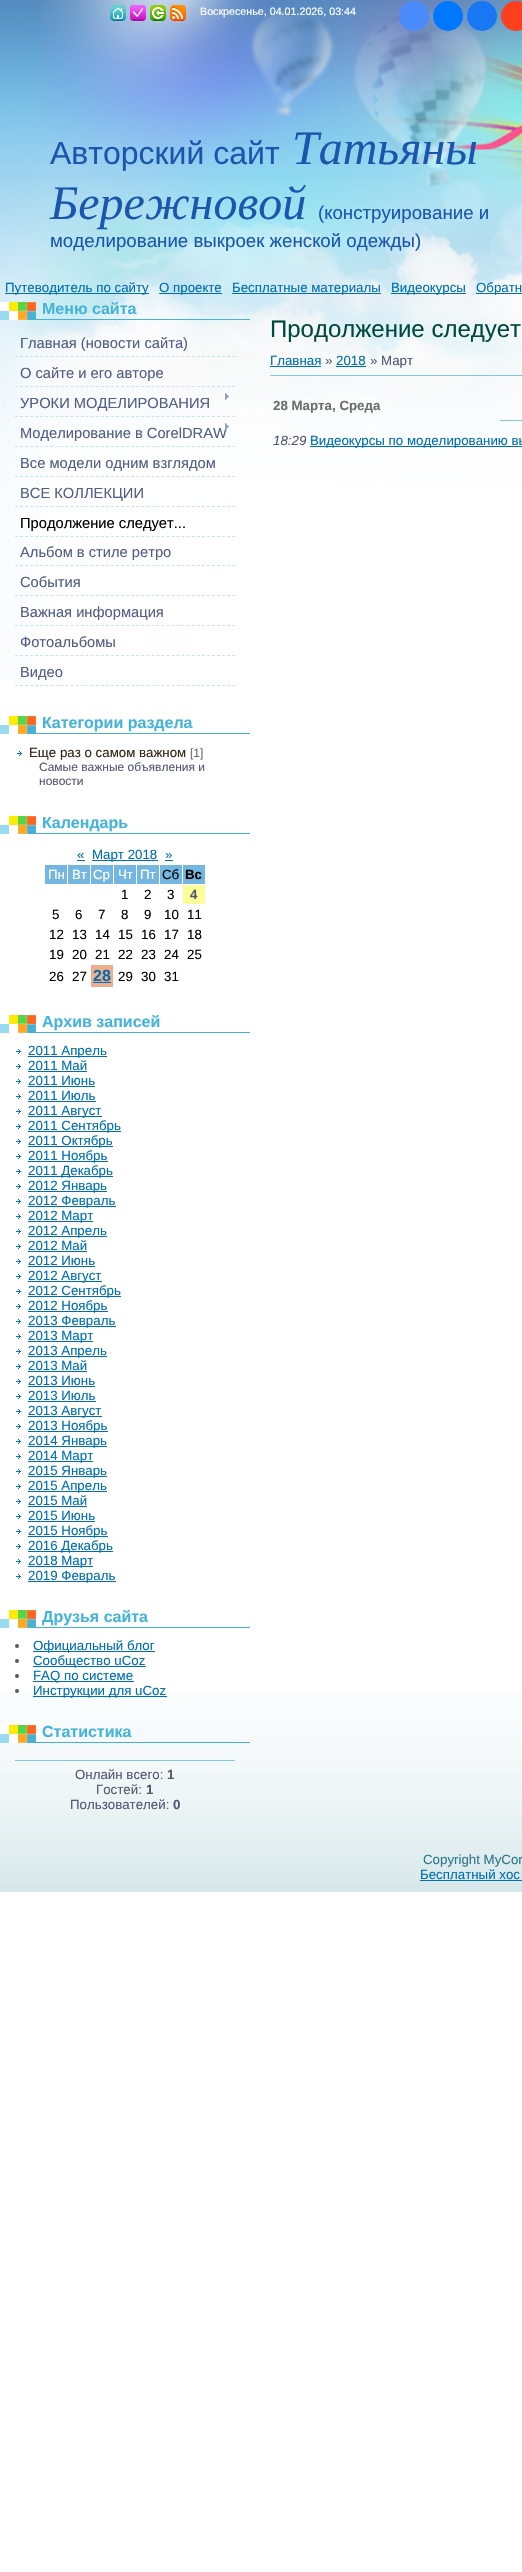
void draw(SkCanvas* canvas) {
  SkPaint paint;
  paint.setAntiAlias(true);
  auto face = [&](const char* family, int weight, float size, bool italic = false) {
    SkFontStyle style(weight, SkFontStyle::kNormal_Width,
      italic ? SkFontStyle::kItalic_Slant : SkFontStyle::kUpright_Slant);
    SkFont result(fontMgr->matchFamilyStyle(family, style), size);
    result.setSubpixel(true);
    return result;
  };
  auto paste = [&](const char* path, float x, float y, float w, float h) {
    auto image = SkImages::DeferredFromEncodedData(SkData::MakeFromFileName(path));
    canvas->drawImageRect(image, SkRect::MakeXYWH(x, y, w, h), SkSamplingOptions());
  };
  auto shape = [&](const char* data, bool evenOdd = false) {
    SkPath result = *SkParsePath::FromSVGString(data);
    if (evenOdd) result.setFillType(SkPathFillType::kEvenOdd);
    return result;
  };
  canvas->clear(0xffffffff);
  paste("img/1.png", 0, 1692, 522, 200);
  paste("img/2.png", 0, 0, 522, 680);
  paste("img/3.png", 110, 5, 16, 16);
  paste("img/4.png", 130, 5, 16, 16);
  paste("img/5.png", 150, 5, 16, 16);
  paste("img/6.png", 170, 5, 16, 16);
  paint.setColor(0xff498bfa);
  canvas->drawCircle(414, 16, 15, paint);
  paint.setColor(0xff0077ff);
  canvas->drawCircle(448, 16, 15, paint);
  paint.setColor(0xff1877f2);
  canvas->drawCircle(482, 16, 15, paint);
  paint.setColor(0xfffc3f1d);
  canvas->drawCircle(516, 16, 15, paint);
  {
    const struct { float x, y, w, h; SkColor color; } items[] = {
      {5, 293, 144, 1, 0xff006fb2},
      {159, 293, 63, 1, 0xff006fb2},
      {232, 293, 149, 1, 0xff006fb2},
      {391, 293, 75, 1, 0xff006fb2},
      {476, 293, 46, 1, 0xff006fb2},
    };
    for (auto [x, y, w, h, color] : items) {
      paint.setColor(color);
      canvas->drawRect(SkRect::MakeXYWH(x, y, w, h), paint);
    }
  }
  paste("img/7.png", 0, 302, 250, 18);
  paint.setStroke(true);
  paint.setStrokeWidth(1);
  paint.setColor(0xffc5e5f5);
  paint.setPathEffect(SkDashPathEffect::Make({{3, 2.05f}}, 0));
  canvas->drawPath(shape("M15 356.5H235"), paint);
  paint.setPathEffect(nullptr);
  paint.setPathEffect(SkDashPathEffect::Make({{3, 2.05f}}, 0));
  canvas->drawPath(shape("M15 386.5H235"), paint);
  paint.setPathEffect(nullptr);
  paint.setPathEffect(SkDashPathEffect::Make({{3, 2.05f}}, 0));
  canvas->drawPath(shape("M15 416.5H235"), paint);
  paint.setPathEffect(nullptr);
  paste("img/8.png", 225, 393, 4, 7);
  paint.setPathEffect(SkDashPathEffect::Make({{3, 2.05f}}, 0));
  canvas->drawPath(shape("M15 446.5H235"), paint);
  paint.setPathEffect(nullptr);
  paint.setPathEffect(SkDashPathEffect::Make({{3, 2.05f}}, 0));
  canvas->drawPath(shape("M15 476.5H235"), paint);
  paint.setPathEffect(nullptr);
  paint.setPathEffect(SkDashPathEffect::Make({{3, 2.05f}}, 0));
  canvas->drawPath(shape("M15 506.5H235"), paint);
  paint.setPathEffect(nullptr);
  paint.setPathEffect(SkDashPathEffect::Make({{3, 2.05f}}, 0));
  canvas->drawPath(shape("M15 536.5H235"), paint);
  paint.setPathEffect(nullptr);
  paint.setPathEffect(SkDashPathEffect::Make({{3, 2.05f}}, 0));
  canvas->drawPath(shape("M15 565.5H235"), paint);
  paint.setPathEffect(nullptr);
  paint.setPathEffect(SkDashPathEffect::Make({{3, 2.05f}}, 0));
  canvas->drawPath(shape("M15 595.5H235"), paint);
  paint.setPathEffect(nullptr);
  paint.setPathEffect(SkDashPathEffect::Make({{3, 2.05f}}, 0));
  canvas->drawPath(shape("M15 625.5H235"), paint);
  paint.setPathEffect(nullptr);
  paint.setPathEffect(SkDashPathEffect::Make({{3, 2.05f}}, 0));
  canvas->drawPath(shape("M15 655.5H235"), paint);
  paint.setPathEffect(nullptr);
  paint.setPathEffect(SkDashPathEffect::Make({{3, 2.05f}}, 0));
  canvas->drawPath(shape("M15 685.5H235"), paint);
  paint.setPathEffect(nullptr);
  paste("img/10.png", 0, 716, 250, 18);
  paste("img/11.png", 17, 751, 5, 5);
  paste("img/10.png", 0, 816, 250, 18);
  paint.setStroke(false);
  {
    const struct { float x, y, w, h; SkColor color; } items[] = {
      {77, 860, 8, 1, 0xff006fb2},
      {92, 860, 66, 1, 0xff006fb2},
      {165, 860, 8, 1, 0xff006fb2},
      {45, 865, 22, 19, 0xff73b6df},
      {68, 865, 22, 19, 0xff73b6df},
      {91, 865, 22, 19, 0xff73b6df},
      {114, 865, 22, 19, 0xff73b6df},
      {137, 865, 22, 19, 0xff73b6df},
      {160, 865, 22, 19, 0xff73b6df},
      {183, 865, 22, 19, 0xff73b6df},
      {183, 885, 22, 19, 0xfffcff97},
      {91, 965, 22, 22, 0xffeeae8e},
      {93, 982, 18, 1, 0xff006fb2},
    };
    for (auto [x, y, w, h, color] : items) {
      paint.setColor(color);
      canvas->drawRect(SkRect::MakeXYWH(x, y, w, h), paint);
    }
  }
  paste("img/10.png", 0, 1015, 250, 18);
  paste("img/11.png", 16, 1049, 5, 5);
  canvas->drawRect(SkRect::MakeXYWH(28, 1056, 79, 1), paint);
  paste("img/11.png", 16, 1064, 5, 5);
  canvas->drawRect(SkRect::MakeXYWH(28, 1071, 59, 1), paint);
  paste("img/11.png", 16, 1079, 5, 5);
  canvas->drawRect(SkRect::MakeXYWH(28, 1086, 67, 1), paint);
  paste("img/11.png", 16, 1094, 5, 5);
  canvas->drawRect(SkRect::MakeXYWH(28, 1101, 68, 1), paint);
  paste("img/11.png", 16, 1109, 5, 5);
  canvas->drawRect(SkRect::MakeXYWH(28, 1116, 74, 1), paint);
  paste("img/11.png", 16, 1124, 5, 5);
  canvas->drawRect(SkRect::MakeXYWH(28, 1131, 93, 1), paint);
  paste("img/11.png", 16, 1139, 5, 5);
  canvas->drawRect(SkRect::MakeXYWH(28, 1146, 85, 1), paint);
  paste("img/11.png", 16, 1154, 5, 5);
  canvas->drawRect(SkRect::MakeXYWH(28, 1161, 80, 1), paint);
  paste("img/11.png", 16, 1169, 5, 5);
  canvas->drawRect(SkRect::MakeXYWH(28, 1176, 85, 1), paint);
  paste("img/11.png", 16, 1184, 5, 5);
  canvas->drawRect(SkRect::MakeXYWH(28, 1191, 79, 1), paint);
  paste("img/11.png", 16, 1199, 5, 5);
  canvas->drawRect(SkRect::MakeXYWH(28, 1206, 88, 1), paint);
  paste("img/11.png", 16, 1214, 5, 5);
  canvas->drawRect(SkRect::MakeXYWH(28, 1221, 65, 1), paint);
  paste("img/11.png", 16, 1229, 5, 5);
  canvas->drawRect(SkRect::MakeXYWH(28, 1236, 79, 1), paint);
  paste("img/11.png", 16, 1244, 5, 5);
  canvas->drawRect(SkRect::MakeXYWH(28, 1251, 59, 1), paint);
  paste("img/11.png", 16, 1259, 5, 5);
  canvas->drawRect(SkRect::MakeXYWH(28, 1266, 67, 1), paint);
  paste("img/11.png", 16, 1274, 5, 5);
  canvas->drawRect(SkRect::MakeXYWH(28, 1281, 74, 1), paint);
  paste("img/11.png", 16, 1289, 5, 5);
  canvas->drawRect(SkRect::MakeXYWH(28, 1296, 93, 1), paint);
  paste("img/11.png", 16, 1304, 5, 5);
  canvas->drawRect(SkRect::MakeXYWH(28, 1311, 80, 1), paint);
  paste("img/11.png", 16, 1319, 5, 5);
  canvas->drawRect(SkRect::MakeXYWH(28, 1326, 88, 1), paint);
  paste("img/11.png", 16, 1334, 5, 5);
  canvas->drawRect(SkRect::MakeXYWH(28, 1341, 65, 1), paint);
  paste("img/11.png", 16, 1349, 5, 5);
  canvas->drawRect(SkRect::MakeXYWH(28, 1356, 79, 1), paint);
  paste("img/11.png", 16, 1364, 5, 5);
  canvas->drawRect(SkRect::MakeXYWH(28, 1371, 59, 1), paint);
  paste("img/11.png", 16, 1379, 5, 5);
  canvas->drawRect(SkRect::MakeXYWH(28, 1386, 67, 1), paint);
  paste("img/11.png", 16, 1394, 5, 5);
  canvas->drawRect(SkRect::MakeXYWH(28, 1401, 68, 1), paint);
  paste("img/11.png", 16, 1409, 5, 5);
  canvas->drawRect(SkRect::MakeXYWH(28, 1416, 74, 1), paint);
  paste("img/11.png", 16, 1424, 5, 5);
  canvas->drawRect(SkRect::MakeXYWH(28, 1431, 80, 1), paint);
  paste("img/11.png", 16, 1439, 5, 5);
  canvas->drawRect(SkRect::MakeXYWH(28, 1446, 79, 1), paint);
  paste("img/11.png", 16, 1454, 5, 5);
  canvas->drawRect(SkRect::MakeXYWH(28, 1461, 65, 1), paint);
  paste("img/11.png", 16, 1469, 5, 5);
  canvas->drawRect(SkRect::MakeXYWH(28, 1476, 79, 1), paint);
  paste("img/11.png", 16, 1484, 5, 5);
  canvas->drawRect(SkRect::MakeXYWH(28, 1491, 79, 1), paint);
  paste("img/11.png", 16, 1499, 5, 5);
  canvas->drawRect(SkRect::MakeXYWH(28, 1506, 59, 1), paint);
  paste("img/11.png", 16, 1514, 5, 5);
  canvas->drawRect(SkRect::MakeXYWH(28, 1521, 67, 1), paint);
  paste("img/11.png", 16, 1529, 5, 5);
  canvas->drawRect(SkRect::MakeXYWH(28, 1536, 80, 1), paint);
  paste("img/11.png", 16, 1544, 5, 5);
  canvas->drawRect(SkRect::MakeXYWH(28, 1551, 85, 1), paint);
  paste("img/11.png", 16, 1559, 5, 5);
  canvas->drawRect(SkRect::MakeXYWH(28, 1566, 65, 1), paint);
  paste("img/11.png", 16, 1574, 5, 5);
  canvas->drawRect(SkRect::MakeXYWH(28, 1581, 88, 1), paint);
  paste("img/10.png", 0, 1610, 250, 18);
  paint.setColor(0xff52596f);
  canvas->drawCircle(17, 1646, 2, paint);
  paint.setColor(0xff006fb2);
  canvas->drawRect(SkRect::MakeXYWH(33, 1651, 122, 1), paint);
  paint.setColor(0xff52596f);
  canvas->drawCircle(17, 1661, 2, paint);
  paint.setColor(0xff006fb2);
  canvas->drawRect(SkRect::MakeXYWH(33, 1666, 113, 1), paint);
  paint.setColor(0xff52596f);
  canvas->drawCircle(17, 1676, 2, paint);
  paint.setColor(0xff006fb2);
  canvas->drawRect(SkRect::MakeXYWH(33, 1681, 101, 1), paint);
  paint.setColor(0xff52596f);
  canvas->drawCircle(17, 1691, 2, paint);
  paint.setColor(0xff006fb2);
  canvas->drawRect(SkRect::MakeXYWH(33, 1696, 134, 1), paint);
  paste("img/12.png", 0, 1725, 250, 18);
  {
    const struct { float x, y, w, h; SkColor color; } items[] = {
      {15, 1760, 220, 1, 0xff7ec8e3},
      {270, 366, 51, 1, 0xff006fb2},
      {336, 366, 30, 1, 0xff006fb2},
      {270, 375, 252, 1, 0xff7ec8e3},
      {500, 420, 22, 1, 0xff7ec8e3},
      {310, 446, 212, 1, 0xff006fb2},
      {420, 1880, 102, 1, 0xff006fb2},
    };
    for (auto [x, y, w, h, color] : items) {
      paint.setColor(color);
      canvas->drawRect(SkRect::MakeXYWH(x, y, w, h), paint);
    }
  }
  auto f0 = face("Liberation Sans", 400, 10.7f);
  paint.setColor(0xffffffff);
  canvas->drawString("Воскресенье, 04.01.2026, 03:44", 200, 15, f0, paint);
  auto f1 = face("Liberation Sans", 400, 32);
  paint.setColor(0xff1a56ac);
  canvas->drawString("Авторский сайт", 50, 164, f1, paint);
  auto f2 = face("Liberation Serif", 400, 48, true);
  canvas->drawString("Татьяны", 292, 164, f2, paint);
  canvas->drawString("Бережновой", 50, 219, f2, paint);
  auto f3 = face("Liberation Sans", 400, 18.7f);
  canvas->drawString("(конструирование и", 318, 219, f3, paint);
  canvas->drawString("моделирование выкроек женской одежды)", 50, 247, f3, paint);
  auto f4 = face("Liberation Sans", 400, 13.3f);
  paint.setColor(0xff006fb2);
  {
    const struct { const char* s; float x, y; } items[] = {
      {"Путеводитель по сайту", 5, 292},
      {"О проекте", 159, 292},
      {"Бесплатные материалы", 232, 292},
      {"Видеокурсы", 391, 292},
      {"Обратн", 476, 292},
    };
    for (auto [s, x, y] : items) {
      canvas->drawString(s, x, y, f4, paint);
    }
  }
  auto f5 = face("Liberation Sans", 700, 16);
  paint.setColor(0xff44b4da);
  canvas->drawString("Меню сайта", 42, 314, f5, paint);
  auto f6 = face("Liberation Sans", 400, 14.7f);
  paint.setColor(0xff525e83);
  {
    const struct { const char* s; float x, y; } items[] = {
      {"Главная (новости сайта)", 20, 348},
      {"О сайте и его авторе", 20, 378},
      {"УРОКИ МОДЕЛИРОВАНИЯ", 20, 408},
      {"Моделирование в CorelDRAW", 20, 438},
    };
    for (auto [s, x, y] : items) {
      canvas->drawString(s, x, y, f6, paint);
    }
  }
  paste("img/9.png", 225, 423, 4, 7);
  canvas->drawString("Все модели одним взглядом", 20, 468, f6, paint);
  canvas->drawString("ВСЕ КОЛЛЕКЦИИ", 20, 498, f6, paint);
  paint.setColor(0xff000000);
  canvas->drawString("Продолжение следует...", 20, 528, f6, paint);
  paint.setColor(0xff525e83);
  {
    const struct { const char* s; float x, y; } items[] = {
      {"Альбом в стиле ретро", 20, 557},
      {"События", 20, 587},
      {"Важная информация", 20, 617},
      {"Фотоальбомы", 20, 647},
      {"Видео", 20, 677},
    };
    for (auto [s, x, y] : items) {
      canvas->drawString(s, x, y, f6, paint);
    }
  }
  paint.setColor(0xff44b4da);
  canvas->drawString("Категории раздела", 42, 728, f5, paint);
  paint.setColor(0xff332414);
  canvas->drawString("Еще раз о самом важном", 29, 757, f4, paint);
  auto f7 = face("Liberation Sans", 400, 12);
  paint.setColor(0xff6e6e6e);
  canvas->drawString("[1]", 190, 757, f7, paint);
  paint.setColor(0xff52596f);
  canvas->drawString("Самые важные объявления и", 39, 771, f7, paint);
  canvas->drawString("новости", 39, 785, f7, paint);
  paint.setColor(0xff44b4da);
  canvas->drawString("Календарь", 42, 828, f5, paint);
  paint.setColor(0xff006fb2);
  {
    const struct { const char* s; float x, y; } items[] = {
      {"«", 77, 859},
      {"Март 2018", 92, 859},
      {"»", 165, 859},
    };
    for (auto [s, x, y] : items) {
      canvas->drawString(s, x, y, f4, paint);
    }
  }
  paint.setColor(0xffffffff);
  {
    const struct { const char* s; float x, y; } items[] = {
      {"Пн", 48, 879},
      {"Вт", 72, 879},
      {"Ср", 93, 879},
      {"Чт", 118, 879},
      {"Пт", 140, 879},
    };
    for (auto [s, x, y] : items) {
      canvas->drawString(s, x, y, f4, paint);
    }
  }
  paint.setColor(0xff000000);
  canvas->drawString("Сб", 162, 879, f4, paint);
  auto f8 = face("Liberation Sans", 700, 13.3f);
  canvas->drawString("Вс", 185, 879, f8, paint);
  {
    const struct { const char* s; float x, y; } items[] = {
      {"1", 121, 899},
      {"2", 144, 899},
      {"3", 167, 899},
    };
    for (auto [s, x, y] : items) {
      canvas->drawString(s, x, y, f4, paint);
    }
  }
  paint.setColor(0xff52596f);
  canvas->drawString("4", 190, 899, f8, paint);
  paint.setColor(0xff000000);
  {
    const struct { const char* s; float x, y; } items[] = {
      {"5", 52, 919},
      {"6", 75, 919},
      {"7", 98, 919},
      {"8", 121, 919},
      {"9", 144, 919},
      {"10", 164, 919},
      {"11", 187, 919},
      {"12", 49, 939},
      {"13", 72, 939},
      {"14", 95, 939},
      {"15", 118, 939},
      {"16", 141, 939},
      {"17", 164, 939},
      {"18", 187, 939},
      {"19", 49, 959},
      {"20", 72, 959},
      {"21", 95, 959},
      {"22", 118, 959},
      {"23", 141, 959},
      {"24", 164, 959},
      {"25", 187, 959},
      {"26", 49, 981},
      {"27", 72, 981},
    };
    for (auto [s, x, y] : items) {
      canvas->drawString(s, x, y, f4, paint);
    }
  }
  paint.setColor(0xff006fb2);
  canvas->drawString("28", 93, 981, f5, paint);
  paint.setColor(0xff000000);
  {
    const struct { const char* s; float x, y; } items[] = {
      {"29", 118, 981},
      {"30", 141, 981},
      {"31", 164, 981},
    };
    for (auto [s, x, y] : items) {
      canvas->drawString(s, x, y, f4, paint);
    }
  }
  paint.setColor(0xff44b4da);
  canvas->drawString("Архив записей", 42, 1027, f5, paint);
  paint.setColor(0xff006fb2);
  {
    const struct { const char* s; float x, y; } items[] = {
      {"2011 Апрель", 28, 1055},
      {"2011 Май", 28, 1070},
      {"2011 Июнь", 28, 1085},
      {"2011 Июль", 28, 1100},
      {"2011 Август", 28, 1115},
      {"2011 Сентябрь", 28, 1130},
      {"2011 Октябрь", 28, 1145},
      {"2011 Ноябрь", 28, 1160},
      {"2011 Декабрь", 28, 1175},
      {"2012 Январь", 28, 1190},
      {"2012 Февраль", 28, 1205},
      {"2012 Март", 28, 1220},
      {"2012 Апрель", 28, 1235},
      {"2012 Май", 28, 1250},
      {"2012 Июнь", 28, 1265},
      {"2012 Август", 28, 1280},
      {"2012 Сентябрь", 28, 1295},
      {"2012 Ноябрь", 28, 1310},
      {"2013 Февраль", 28, 1325},
      {"2013 Март", 28, 1340},
      {"2013 Апрель", 28, 1355},
      {"2013 Май", 28, 1370},
      {"2013 Июнь", 28, 1385},
      {"2013 Июль", 28, 1400},
      {"2013 Август", 28, 1415},
      {"2013 Ноябрь", 28, 1430},
      {"2014 Январь", 28, 1445},
      {"2014 Март", 28, 1460},
      {"2015 Январь", 28, 1475},
      {"2015 Апрель", 28, 1490},
      {"2015 Май", 28, 1505},
      {"2015 Июнь", 28, 1520},
      {"2015 Ноябрь", 28, 1535},
      {"2016 Декабрь", 28, 1550},
      {"2018 Март", 28, 1565},
      {"2019 Февраль", 28, 1580},
    };
    for (auto [s, x, y] : items) {
      canvas->drawString(s, x, y, f4, paint);
    }
  }
  paint.setColor(0xff44b4da);
  canvas->drawString("Друзья сайта", 42, 1622, f5, paint);
  paint.setColor(0xff006fb2);
  {
    const struct { const char* s; float x, y; } items[] = {
      {"Официальный блог", 33, 1650},
      {"Сообщество uCoz", 33, 1665},
      {"FAQ по системе", 33, 1680},
      {"Инструкции для uCoz", 33, 1695},
    };
    for (auto [s, x, y] : items) {
      canvas->drawString(s, x, y, f4, paint);
    }
  }
  paint.setColor(0xff44b4da);
  canvas->drawString("Статистика", 42, 1737, f5, paint);
  paint.setColor(0xff52596f);
  canvas->drawString("Онлайн всего:", 75, 1779, f4, paint);
  canvas->drawString("1", 167, 1779, f8, paint);
  canvas->drawString("Гостей:", 96, 1794, f4, paint);
  canvas->drawString("1", 146, 1794, f8, paint);
  canvas->drawString("Пользователей:", 70, 1809, f4, paint);
  canvas->drawString("0", 173, 1809, f8, paint);
  auto f9 = face("Liberation Sans", 400, 24);
  paint.setColor(0xff00493e);
  canvas->drawString("Продолжение следует", 270, 337, f9, paint);
  paint.setColor(0xff006fb2);
  canvas->drawString("Главная", 270, 365, f4, paint);
  paint.setColor(0xff52596f);
  canvas->drawString("»", 325, 365, f4, paint);
  paint.setColor(0xff006fb2);
  canvas->drawString("2018", 336, 365, f4, paint);
  paint.setColor(0xff52596f);
  canvas->drawString("» Март", 370, 365, f4, paint);
  paint.setColor(0xff6e6e6e);
  canvas->drawString("28 Марта, Среда", 273, 410, f8, paint);
  auto f10 = face("Liberation Sans", 400, 13.3f, true);
  paint.setColor(0xff52596f);
  canvas->drawString("18:29", 273, 445, f10, paint);
  paint.setColor(0xff006fb2);
  canvas->drawString("Видеокурсы по моделированию вы", 310, 445, f4, paint);
  paint.setColor(0xff2e758d);
  canvas->drawString("Copyright MyCor", 423, 1864, f4, paint);
  paint.setColor(0xff006fb2);
  canvas->drawString("Бесплатный хос", 420, 1879, f4, paint);
}
